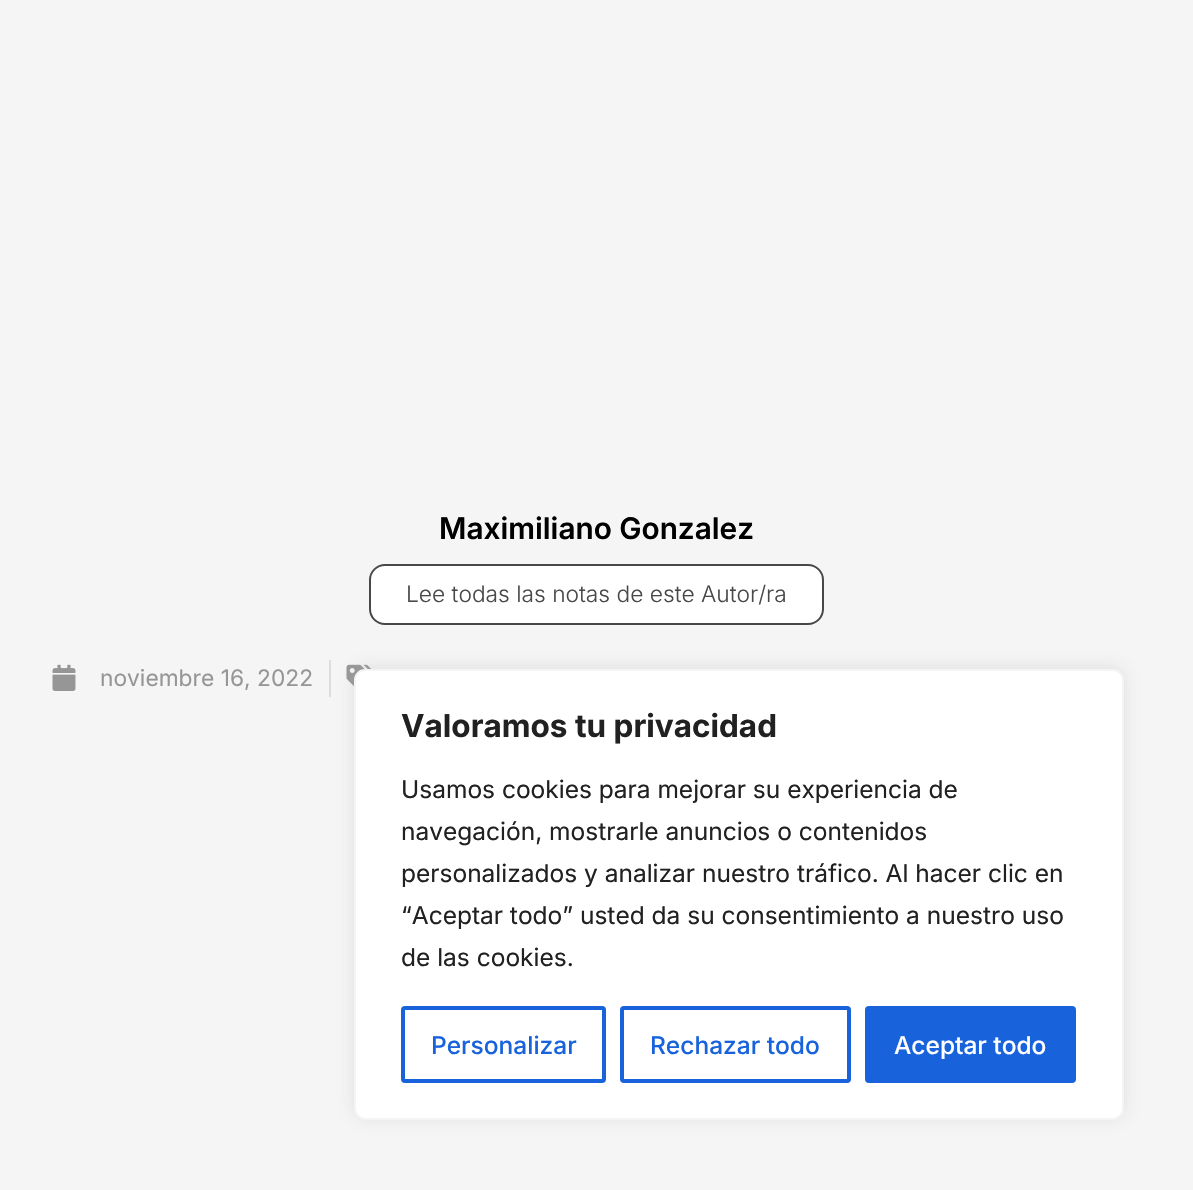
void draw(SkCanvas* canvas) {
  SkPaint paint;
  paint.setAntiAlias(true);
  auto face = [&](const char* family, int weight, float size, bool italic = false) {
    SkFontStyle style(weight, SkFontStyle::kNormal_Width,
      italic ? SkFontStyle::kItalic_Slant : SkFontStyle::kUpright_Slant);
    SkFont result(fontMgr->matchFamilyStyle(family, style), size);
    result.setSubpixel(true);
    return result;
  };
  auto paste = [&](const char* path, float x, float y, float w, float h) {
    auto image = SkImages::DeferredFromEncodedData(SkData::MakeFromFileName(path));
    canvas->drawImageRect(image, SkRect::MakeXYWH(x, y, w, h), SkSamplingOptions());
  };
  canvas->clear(0xfff5f5f5);
  paint.setColor(0xffffffff);
  canvas->drawRoundRect(SkRect::MakeXYWH(370, 565, 453, 59), 15, 15, paint);
  paint.setStroke(true);
  paint.setStrokeWidth(2);
  paint.setColor(0xff484848);
  canvas->drawRoundRect(SkRect::MakeXYWH(370, 565, 453, 59), 15, 15, paint);
  paste("img/1.png", 52, 664, 24, 27);
  paint.setStroke(false);
  paint.setColor(0xffdddddd);
  canvas->drawRect(SkRect::MakeXYWH(329, 660, 2, 37), paint);
  paste("img/2.png", 346, 664, 26, 23);
  paint.setColor(0x4dacabab);
  paint.setMaskFilter(SkMaskFilter::MakeBlur(kNormal_SkBlurStyle, 9));
  canvas->drawRoundRect(SkRect::MakeXYWH(354, 667, 770, 451), 11, 11, paint);
  paint.setMaskFilter(nullptr);
  paint.setColor(0xffffffff);
  canvas->drawRoundRect(SkRect::MakeXYWH(355, 670, 768, 449), 10, 10, paint);
  paint.setStroke(true);
  paint.setColor(0xfff4f4f4);
  canvas->drawRoundRect(SkRect::MakeXYWH(355, 670, 768, 449), 10, 10, paint);
  paint.setStrokeWidth(4);
  paint.setColor(0xff1863dc);
  canvas->drawRoundRect(SkRect::MakeXYWH(403, 1008, 201, 73), 2, 2, paint);
  canvas->drawRoundRect(SkRect::MakeXYWH(622, 1008, 227, 73), 2, 2, paint);
  paint.setStroke(false);
  canvas->drawRoundRect(SkRect::MakeXYWH(867, 1008, 207, 73), 2, 2, paint);
  paint.setStroke(true);
  canvas->drawRoundRect(SkRect::MakeXYWH(867, 1008, 207, 73), 2, 2, paint);
  auto f0 = face("Inter", 600, 29.75f);
  paint.setStroke(false);
  paint.setColor(0xff000000);
  canvas->drawString("Maximiliano Gonzalez", 439, 539, f0, paint);
  auto f1 = face("Inter", 300, 22.75f);
  paint.setColor(0xff484848);
  canvas->drawString("Lee todas las notas de este Autor/ra", 406, 602, f1, paint);
  auto f2 = face("Inter", 400, 22.75f);
  paint.setColor(0xff969696);
  canvas->drawString("noviembre 16, 2022", 100, 686, f2, paint);
  auto f3 = face("Inter", 700, 31.5f);
  paint.setColor(0xff212121);
  canvas->drawString("Valoramos tu privacidad", 401, 737, f3, paint);
  auto f4 = face("Inter", 400, 24.5f);
  {
    const struct { const char* s; float x, y; } items[] = {
      {"Usamos cookies para mejorar su experiencia de", 401, 798},
      {"navegación, mostrarle anuncios o contenidos", 401, 840},
      {"personalizados y analizar nuestro tráfico. Al hacer clic en", 401, 882},
      {"“Aceptar todo” usted da su consentimiento a nuestro uso", 401, 924},
      {"de las cookies.", 401, 966},
    };
    for (auto [s, x, y] : items) {
      canvas->drawString(s, x, y, f4, paint);
    }
  }
  auto f5 = face("Inter", 500, 24.5f);
  paint.setColor(0xff1863dc);
  canvas->drawString("Personalizar", 431, 1054, f5, paint);
  canvas->drawString("Rechazar todo", 650, 1054, f5, paint);
  paint.setColor(0xffffffff);
  canvas->drawString("Aceptar todo", 894, 1054, f5, paint);
}
